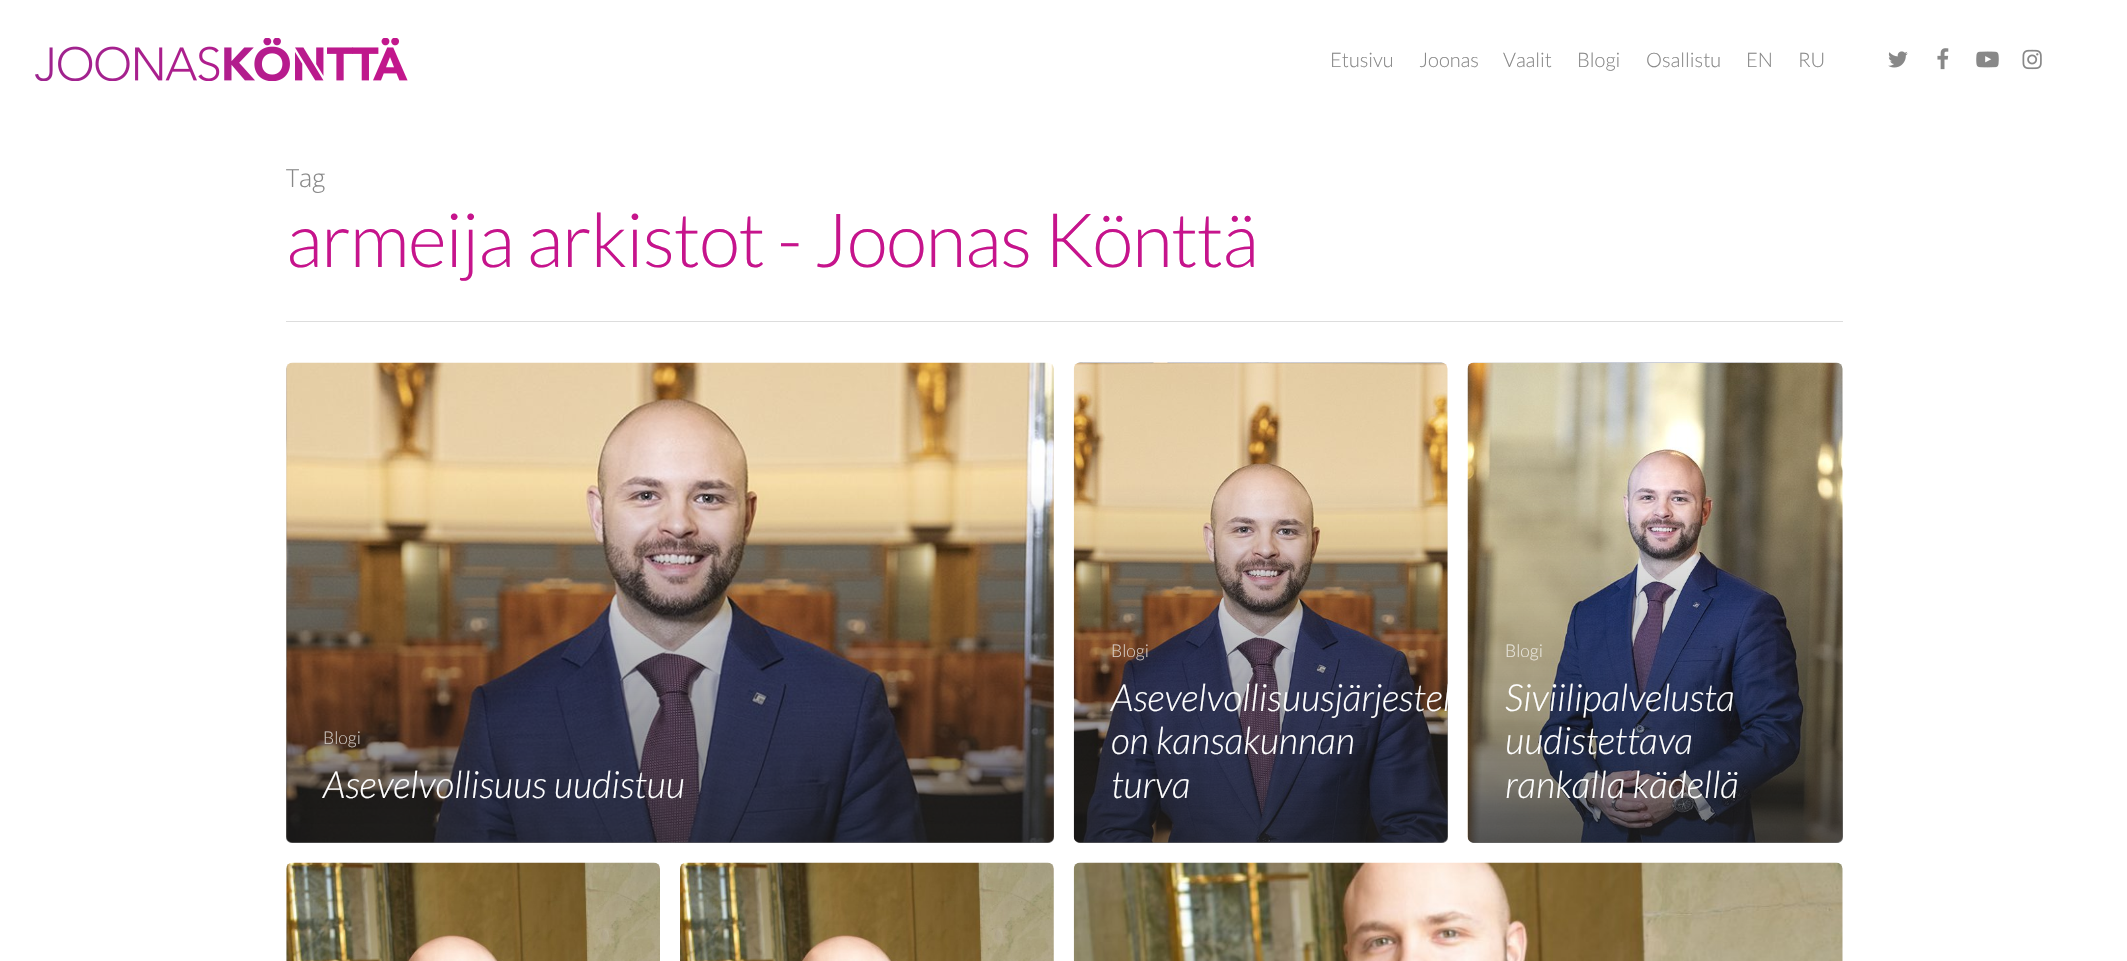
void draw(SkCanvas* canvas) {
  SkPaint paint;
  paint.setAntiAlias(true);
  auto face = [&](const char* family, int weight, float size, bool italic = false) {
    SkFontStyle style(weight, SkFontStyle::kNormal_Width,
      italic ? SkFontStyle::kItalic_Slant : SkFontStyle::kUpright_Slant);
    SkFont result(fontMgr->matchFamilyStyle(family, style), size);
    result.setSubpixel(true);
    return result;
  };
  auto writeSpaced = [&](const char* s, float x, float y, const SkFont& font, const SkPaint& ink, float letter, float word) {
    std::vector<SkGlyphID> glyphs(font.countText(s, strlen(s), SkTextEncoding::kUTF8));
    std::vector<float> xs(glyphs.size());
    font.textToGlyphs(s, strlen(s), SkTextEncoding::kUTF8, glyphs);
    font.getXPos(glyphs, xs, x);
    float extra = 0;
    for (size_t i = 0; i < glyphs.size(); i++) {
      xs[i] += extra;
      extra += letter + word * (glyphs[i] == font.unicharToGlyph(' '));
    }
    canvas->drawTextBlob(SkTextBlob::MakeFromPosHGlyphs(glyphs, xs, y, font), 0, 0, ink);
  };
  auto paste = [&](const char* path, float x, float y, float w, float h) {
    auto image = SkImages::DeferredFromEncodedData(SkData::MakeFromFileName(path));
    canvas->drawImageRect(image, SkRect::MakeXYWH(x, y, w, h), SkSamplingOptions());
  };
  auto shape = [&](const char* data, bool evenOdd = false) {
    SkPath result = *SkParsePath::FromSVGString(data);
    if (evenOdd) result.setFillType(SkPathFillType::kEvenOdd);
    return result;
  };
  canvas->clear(0xffffffff);
  paste("img/1.png", 35, 38, 373, 43);
  paste("img/2.png", 1888, 51, 20, 17);
  paste("img/3.png", 1937, 48, 12, 22);
  paste("img/4.png", 1976, 51, 23, 17);
  paste("img/5.png", 2022, 49, 20, 21);
  paint.setColor(0xffdddddd);
  canvas->drawRect(SkRect::MakeXYWH(286, 321, 1557, 1), paint);
  paste("img/6.png", 286, 362, 768, 481);
  {
    const SkColor colors[] = {0x00232323, 0xa6232323};
    const float stops[] = {0, 1};
    const SkPoint ends[] = {{672, 484}, {672, 845}};
    paint.setShader(SkGradientShader::MakeLinear(ends, colors, stops, 2, SkTileMode::kClamp));
    paint.setAlpha(255);
  }
  canvas->drawPath(shape("M286 484H1054V837C1054 840.5 1051.5 843 1048 843H292C288.5 843 286 840.5 286 837Z"), paint);
  paste("img/7.png", 1073, 362, 375, 481);
  {
    const SkColor colors[] = {0x00232323, 0xa6232323};
    const float stops[] = {0, 1};
    const SkPoint ends[] = {{1262, 484}, {1262, 845}};
    paint.setShader(SkGradientShader::MakeLinear(ends, colors, stops, 2, SkTileMode::kClamp));
    paint.setAlpha(255);
  }
  canvas->drawPath(shape("M1074 484H1448V837C1448 840.5 1445.5 843 1442 843H1080C1076.5 843 1074 840.5 1074 837Z"), paint);
  paste("img/8.png", 1467, 362, 376, 481);
  {
    const SkColor colors[] = {0x00232323, 0xa6232323};
    const float stops[] = {0, 1};
    const SkPoint ends[] = {{1656, 484}, {1656, 845}};
    paint.setShader(SkGradientShader::MakeLinear(ends, colors, stops, 2, SkTileMode::kClamp));
    paint.setAlpha(255);
  }
  canvas->drawPath(shape("M1468 484H1843V837C1843 840.5 1840.5 843 1837 843H1474C1470.5 843 1468 840.5 1468 837Z"), paint);
  paste("img/9.png", 286, 862, 374, 99);
  paste("img/10.png", 680, 862, 374, 99);
  paste("img/11.png", 1073, 862, 770, 99);
  auto f0 = face("Lato", 300, 20);
  paint.setShader(nullptr);
  paint.setColor(0xff888888);
  {
    const struct { const char* s; float x, y; } items[] = {
      {"Etusivu", 1330, 67},
      {"Joonas", 1419, 67},
      {"Vaalit", 1503, 67},
      {"Blogi", 1577, 67},
      {"Osallistu", 1646, 67},
      {"EN", 1746, 67},
      {"RU", 1798, 67},
    };
    for (auto [s, x, y] : items) {
      canvas->drawString(s, x, y, f0, paint);
    }
  }
  auto f1 = face("Open Sans", 300, 25);
  canvas->drawString("Tag", 286, 187, f1, paint);
  auto f2 = face("Lato", 300, 75);
  paint.setColor(0xffc6148c);
  writeSpaced("armeija arkistot - Joonas Könttä", 286, 267, f2, paint, -1.25f, 0);
  auto f3 = face("Lato", 300, 17.5f);
  paint.setColor(0xffccc5c0);
  canvas->drawString("Blogi", 323, 744, f3, paint);
  auto f4 = face("Lato", 300, 37.5f, true);
  paint.setColor(0xffffffff);
  canvas->drawString("Asevelvollisuus uudistuu", 323, 798, f4, paint);
  paint.setColor(0xffd5cac4);
  canvas->drawString("Blogi", 1111, 657, f3, paint);
  canvas->save();
  canvas->clipPath(shape("M1080 363H1442C1445.5 363 1448 365.5 1448 369V837C1448 840.5 1445.5 843 1442 843H1080C1076.5 843 1074 840.5 1074 837V369C1074 365.5 1076.5 363 1080 363Z"), true);
  paint.setColor(0xffffffff);
  canvas->drawString("Asevelvollisuusjärjestel", 1111, 711, f4, paint);
  canvas->restore();
  canvas->drawString("on kansakunnan", 1111, 754, f4, paint);
  canvas->drawString("turva", 1111, 798, f4, paint);
  paint.setColor(0xffe7e4db);
  canvas->drawString("Blogi", 1505, 657, f3, paint);
  paint.setColor(0xffffffff);
  {
    const struct { const char* s; float x, y; } items[] = {
      {"Siviilipalvelusta", 1505, 711},
      {"uudistettava", 1505, 754},
      {"rankalla kädellä", 1505, 798},
    };
    for (auto [s, x, y] : items) {
      canvas->drawString(s, x, y, f4, paint);
    }
  }
}
